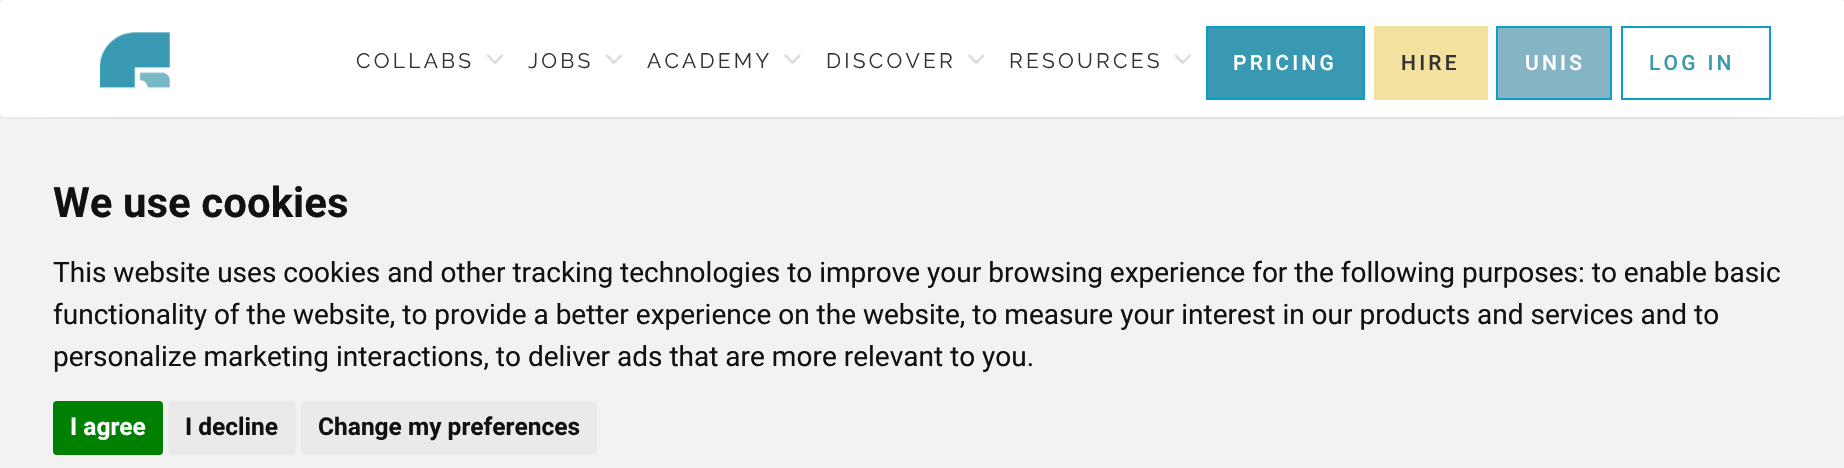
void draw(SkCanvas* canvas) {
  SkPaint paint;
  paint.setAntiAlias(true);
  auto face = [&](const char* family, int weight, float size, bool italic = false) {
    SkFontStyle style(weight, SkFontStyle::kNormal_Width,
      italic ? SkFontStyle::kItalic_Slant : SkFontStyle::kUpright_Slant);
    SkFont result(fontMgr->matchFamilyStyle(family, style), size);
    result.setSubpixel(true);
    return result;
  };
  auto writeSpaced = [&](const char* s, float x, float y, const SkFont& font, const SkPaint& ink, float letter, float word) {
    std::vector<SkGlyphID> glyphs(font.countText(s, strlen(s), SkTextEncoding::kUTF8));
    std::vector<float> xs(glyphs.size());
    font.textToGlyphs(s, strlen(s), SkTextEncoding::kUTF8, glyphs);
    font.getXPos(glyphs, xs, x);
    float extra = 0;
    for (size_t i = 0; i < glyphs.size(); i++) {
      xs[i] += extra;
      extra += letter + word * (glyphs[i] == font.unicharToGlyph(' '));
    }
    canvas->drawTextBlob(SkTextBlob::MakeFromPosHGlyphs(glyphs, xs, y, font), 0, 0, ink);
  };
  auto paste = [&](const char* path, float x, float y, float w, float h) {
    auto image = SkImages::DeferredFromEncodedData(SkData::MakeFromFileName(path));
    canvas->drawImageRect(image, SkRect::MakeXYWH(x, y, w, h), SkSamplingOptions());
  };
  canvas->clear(0xfff8f8f8);
  paint.setColor(0x33000000);
  paint.setMaskFilter(SkMaskFilter::MakeBlur(kNormal_SkBlurStyle, 87.5f));
  canvas->drawRoundRect(SkRect::MakeXYWH(0, 18, 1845, 117), 5, 5, paint);
  paint.setMaskFilter(nullptr);
  paint.setColor(0xffffffff);
  canvas->drawRoundRect(SkRect::MakeXYWH(0, 0, 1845, 117), 5, 5, paint);
  paste("img/1.png", 100, 32, 70, 57);
  paste("img/2.png", 486, 54, 18, 11);
  paste("img/3.png", 605, 54, 18, 11);
  paste("img/4.png", 784, 54, 17, 11);
  paste("img/5.png", 967, 54, 18, 11);
  paste("img/6.png", 1174, 54, 18, 11);
  paint.setColor(0xff3a99b2);
  canvas->drawRect(SkRect::MakeXYWH(1207, 27, 157, 72), paint);
  paint.setStroke(true);
  paint.setStrokeWidth(2);
  paint.setColor(0xff0c9ec7);
  canvas->drawRect(SkRect::MakeXYWH(1207, 27, 157, 72), paint);
  paint.setStroke(false);
  paint.setColor(0xfff3e1a0);
  canvas->drawRect(SkRect::MakeXYWH(1374, 26, 114, 74), paint);
  paint.setColor(0xff85b5c4);
  canvas->drawRect(SkRect::MakeXYWH(1497, 27, 114, 72), paint);
  paint.setStroke(true);
  paint.setColor(0xff0c9ec7);
  canvas->drawRect(SkRect::MakeXYWH(1497, 27, 114, 72), paint);
  canvas->drawRect(SkRect::MakeXYWH(1622, 27, 148, 72), paint);
  paint.setStroke(false);
  paint.setColor(0xfff2f2f2);
  canvas->drawRect(SkRect::MakeXYWH(0, 119, 1844, 349), paint);
  paint.setColor(0xff008000);
  canvas->drawRoundRect(SkRect::MakeXYWH(53, 401, 110, 54), 4, 4, paint);
  paint.setColor(0xffeaeaea);
  canvas->drawRoundRect(SkRect::MakeXYWH(168, 401, 128, 54), 4, 4, paint);
  canvas->drawRoundRect(SkRect::MakeXYWH(301, 401, 296, 54), 4, 4, paint);
  auto f0 = face("Raleway", 400, 21);
  paint.setColor(0xff333333);
  {
    const struct { const char* s; float x, y; } items[] = {
      {"COLLABS", 356, 68},
      {"JOBS", 528, 68},
      {"ACADEMY", 647, 68},
      {"DISCOVER", 826, 68},
      {"RESOURCES", 1009, 68},
    };
    for (auto [s, x, y] : items) {
      writeSpaced(s, x, y, f0, paint, 3.25f, 0);
    }
  }
  auto f1 = face("Roboto", 500, 21);
  paint.setColor(0xffffffff);
  writeSpaced("PRICING", 1233, 70, f1, paint, 3.25f, 0);
  paint.setColor(0xff333333);
  writeSpaced("HIRE", 1401, 70, f1, paint, 3.25f, 0);
  paint.setColor(0xffffffff);
  writeSpaced("UNIS", 1525, 70, f1, paint, 3.25f, 0);
  paint.setColor(0xff3a99b2);
  writeSpaced("LOG IN", 1649, 70, f1, paint, 3.25f, 0);
  auto f2 = face("Roboto", 700, 42);
  paint.setColor(0xff111111);
  canvas->drawString("We use cookies", 53, 217, f2, paint);
  auto f3 = face("Roboto", 400, 28);
  {
    const struct { const char* s; float x, y; } items[] = {
      {"This website uses cookies and other tracking technologies to improve your browsing experience for the following purposes: to enable basic", 53, 282},
      {"functionality of the website, to provide a better experience on the website, to measure your interest in our products and services and to", 53, 324},
      {"personalize marketing interactions, to deliver ads that are more relevant to you.", 53, 366},
    };
    for (auto [s, x, y] : items) {
      canvas->drawString(s, x, y, f3, paint);
    }
  }
  auto f4 = face("Roboto", 700, 24.5f);
  paint.setColor(0xffffffff);
  canvas->drawString("I agree", 70, 435, f4, paint);
  paint.setColor(0xff111111);
  canvas->drawString("I decline", 185, 435, f4, paint);
  canvas->drawString("Change my preferences", 318, 435, f4, paint);
}
